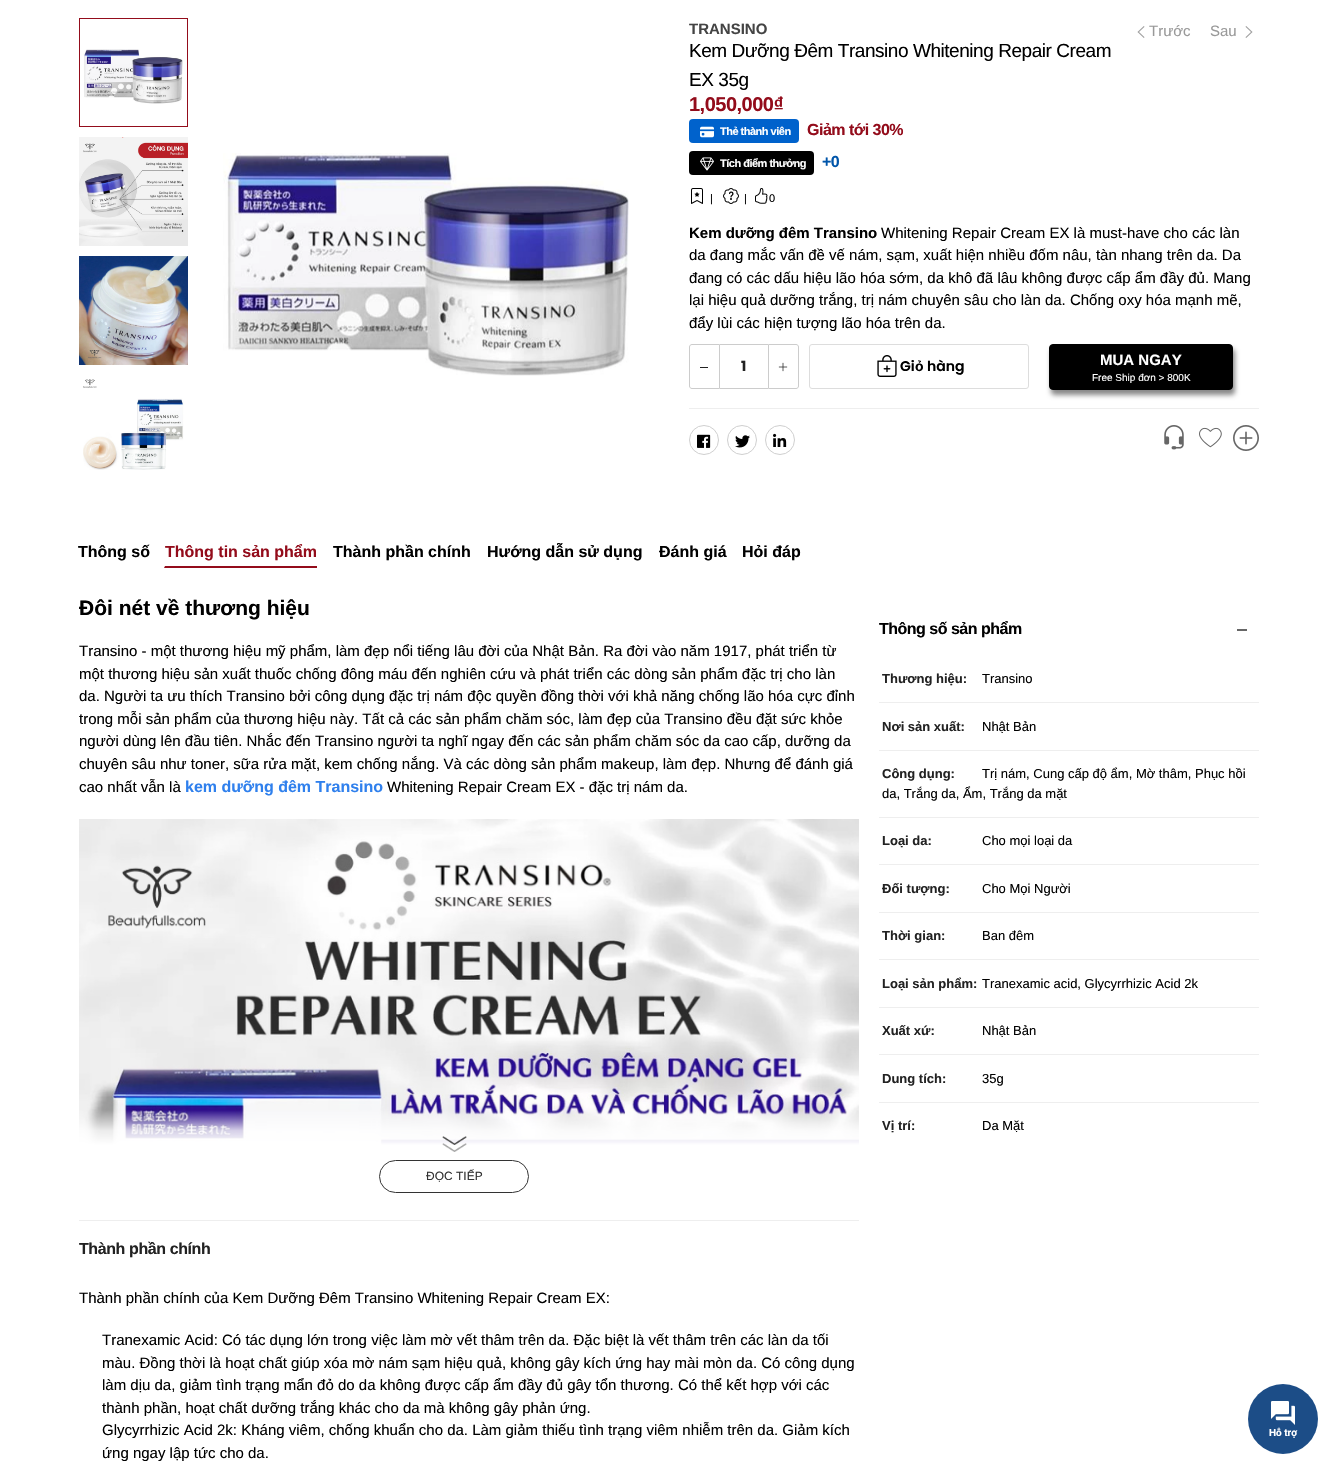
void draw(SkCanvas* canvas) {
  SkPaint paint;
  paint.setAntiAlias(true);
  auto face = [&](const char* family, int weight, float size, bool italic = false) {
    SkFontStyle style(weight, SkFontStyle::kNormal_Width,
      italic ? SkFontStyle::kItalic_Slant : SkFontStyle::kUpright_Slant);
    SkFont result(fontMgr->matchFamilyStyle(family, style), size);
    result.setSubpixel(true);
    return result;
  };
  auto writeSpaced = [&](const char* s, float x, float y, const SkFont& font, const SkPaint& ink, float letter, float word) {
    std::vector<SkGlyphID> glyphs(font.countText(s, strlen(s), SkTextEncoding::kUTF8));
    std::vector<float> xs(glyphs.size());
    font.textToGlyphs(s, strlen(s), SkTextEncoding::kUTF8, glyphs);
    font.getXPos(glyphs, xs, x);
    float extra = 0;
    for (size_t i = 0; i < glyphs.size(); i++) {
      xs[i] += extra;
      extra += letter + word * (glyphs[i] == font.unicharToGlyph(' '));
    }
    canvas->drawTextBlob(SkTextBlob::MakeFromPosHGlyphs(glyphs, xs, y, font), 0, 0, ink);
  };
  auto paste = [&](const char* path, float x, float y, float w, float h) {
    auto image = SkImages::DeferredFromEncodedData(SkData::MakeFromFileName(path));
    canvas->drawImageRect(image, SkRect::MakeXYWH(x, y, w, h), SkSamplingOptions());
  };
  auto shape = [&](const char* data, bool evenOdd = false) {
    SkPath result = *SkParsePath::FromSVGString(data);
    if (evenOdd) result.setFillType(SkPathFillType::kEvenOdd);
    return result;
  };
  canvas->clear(0xffffffff);
  paste("img/1.png", 83, 49, 100, 55);
  paint.setStroke(true);
  paint.setStrokeWidth(1);
  paint.setColor(0xff930c1b);
  canvas->drawRect(SkRect::MakeXYWH(79.5f, 18.5f, 108, 108), paint);
  paste("img/2.png", 79, 137, 109, 109);
  paste("img/3.png", 79, 256, 109, 109);
  paste("img/4.png", 83, 379, 101, 91);
  paste("img/5.png", 223, 153, 406, 223);
  paste("img/6.png", 1137, 26, 8, 12);
  paste("img/7.png", 1245, 26, 8, 12);
  paint.setStroke(false);
  paint.setColor(0xff0062cc);
  canvas->drawRoundRect(SkRect::MakeXYWH(689, 119, 110, 24), 4, 4, paint);
  paste("img/8.png", 700, 126, 14, 12);
  paint.setColor(0xff000000);
  canvas->drawRoundRect(SkRect::MakeXYWH(689, 151, 125, 24), 4, 4, paint);
  paste("img/9.png", 700, 157, 14, 14);
  paste("img/10.png", 691, 188, 12, 16);
  paste("img/11.png", 723, 188, 16, 16);
  paste("img/12.png", 755, 188, 13, 16);
  paint.setStroke(true);
  paint.setColor(0xffcccccc);
  canvas->drawPath(shape("M692 344.5H719.5V388.5H692C690.5 388.5 689.5 387.5 689.5 386V347C689.5 345.5 690.5 344.5 692 344.5Z"), paint);
  paint.setStroke(false);
  {
    const struct { float x, y, w, h; SkColor color; } items[] = {
      {700, 367, 8, 1, 0xff222222},
      {720, 344, 48, 1, 0xffcccccc},
      {720, 388, 48, 1, 0xffcccccc},
    };
    for (auto [x, y, w, h, color] : items) {
      paint.setColor(color);
      canvas->drawRect(SkRect::MakeXYWH(x, y, w, h), paint);
    }
  }
  paint.setStroke(true);
  canvas->drawPath(shape("M768.5 344.5H796C797.5 344.5 798.5 345.5 798.5 347V386C798.5 387.5 797.5 388.5 796 388.5H768.5Z"), paint);
  paste("img/13.png", 778, 362, 10, 10);
  paint.setColor(0xffdddddd);
  canvas->drawRoundRect(SkRect::MakeXYWH(809.5f, 344.5f, 219, 44), 2.5f, 2.5f, paint);
  paste("img/14.png", 877, 355, 20, 22);
  paint.setStroke(false);
  paint.setColor(0xff888888);
  paint.setMaskFilter(SkMaskFilter::MakeBlur(kNormal_SkBlurStyle, 2.5f));
  canvas->drawRoundRect(SkRect::MakeXYWH(1051, 349, 184, 46), 4, 4, paint);
  paint.setMaskFilter(nullptr);
  paint.setColor(0xff000000);
  canvas->drawRoundRect(SkRect::MakeXYWH(1049.5f, 344.5f, 183, 45), 3.5f, 3.5f, paint);
  paint.setStroke(true);
  canvas->drawRoundRect(SkRect::MakeXYWH(1049.5f, 344.5f, 183, 45), 3.5f, 3.5f, paint);
  paint.setStroke(false);
  paint.setColor(0xffeeeeee);
  canvas->drawRect(SkRect::MakeXYWH(689, 408, 570, 1), paint);
  paint.setStroke(true);
  paint.setColor(0xffcfcfcf);
  canvas->drawCircle(704, 440, 14.5f, paint);
  paste("img/15.png", 697, 434, 14, 14);
  canvas->drawCircle(742, 440, 14.5f, paint);
  paste("img/16.png", 735, 435, 15, 13);
  canvas->drawCircle(780, 440, 14.5f, paint);
  paste("img/17.png", 773, 433, 14, 14);
  paste("img/18.png", 1164, 425, 20, 25);
  paste("img/19.png", 1199, 427, 23, 21);
  paste("img/20.png", 1233, 425, 26, 26);
  paint.setStroke(false);
  paint.setColor(0xff930c1b);
  canvas->drawPath(shape("M317 568H164L165 566H317Z"), paint);
  paste("img/21.png", 79, 819, 780, 341);
  paint.setStroke(true);
  paint.setColor(0xff333333);
  canvas->drawRoundRect(SkRect::MakeXYWH(379.5f, 1160.5f, 149, 32), 16, 16, paint);
  paste("img/22.png", 442, 1136, 25, 9);
  paste("img/23.png", 442, 1143, 25, 9);
  paint.setStroke(false);
  {
    const struct { float x, y, w, h; SkColor color; } items[] = {
      {79, 1220, 780, 1, 0xffeeeeee},
      {1237, 629, 10, 2, 0xff666666},
      {879, 702, 380, 1, 0xffeeeeee},
      {879, 750, 380, 1, 0xffeeeeee},
      {879, 817, 380, 1, 0xffeeeeee},
      {879, 864, 380, 1, 0xffeeeeee},
      {879, 912, 380, 1, 0xffeeeeee},
      {879, 959, 380, 1, 0xffeeeeee},
      {879, 1007, 380, 1, 0xffeeeeee},
      {879, 1054, 380, 1, 0xffeeeeee},
      {879, 1102, 380, 1, 0xffeeeeee},
    };
    for (auto [x, y, w, h, color] : items) {
      paint.setColor(color);
      canvas->drawRect(SkRect::MakeXYWH(x, y, w, h), paint);
    }
  }
  paint.setColor(0xff1c4d87);
  canvas->drawCircle(1283, 1419, 35, paint);
  paste("img/24.png", 1271, 1401, 24, 24);
  auto f0 = face("Liberation Sans", 700, 15);
  paint.setColor(0xff444444);
  canvas->drawString("TRANSINO", 689, 34, f0, paint);
  auto f1 = face("Liberation Sans", 400, 15);
  paint.setColor(0xff999999);
  canvas->drawString("Trước", 1149, 36, f1, paint);
  canvas->drawString("Sau", 1210, 36, f1, paint);
  auto f2 = face("Liberation Sans", 400, 19);
  paint.setColor(0xff000000);
  writeSpaced("Kem Dưỡng Đêm Transino Whitening Repair Cream", 689, 57, f2, paint, -0.45f, 0);
  writeSpaced("EX 35g", 689, 86, f2, paint, -0.45f, 0);
  auto f3 = face("Liberation Sans", 700, 20);
  paint.setColor(0xff930c1b);
  writeSpaced("1,050,000₫", 689, 111, f3, paint, -0.5f, 0);
  auto f4 = face("Liberation Sans", 700, 11);
  paint.setColor(0xffffffff);
  writeSpaced("Thẻ thành viên", 720, 135, f4, paint, -0.5f, 0);
  auto f5 = face("Liberation Sans", 700, 16);
  paint.setColor(0xff930c1b);
  writeSpaced("Giảm tới 30%", 807, 135, f5, paint, -0.5f, 0);
  paint.setColor(0xffffffff);
  writeSpaced("Tích điểm thưởng", 720, 167, f4, paint, -0.5f, 0);
  paint.setColor(0xff0055aa);
  writeSpaced("+0", 822, 167, f5, paint, -0.5f, 0);
  auto f6 = face("Liberation Sans", 400, 11);
  paint.setColor(0xff000000);
  {
    const struct { const char* s; float x, y; } items[] = {
      {"|", 710, 202},
      {"|", 744, 202},
      {"0", 769, 202},
    };
    for (auto [s, x, y] : items) {
      writeSpaced(s, x, y, f6, paint, 1, 0);
    }
  }
  canvas->drawString("Kem dưỡng đêm Transino", 689, 238, f0, paint);
  {
    const struct { const char* s; float x, y; } items[] = {
      {"Whitening Repair Cream EX là must-have cho các làn", 881, 238},
      {"da đang mắc vấn đề vế nám, sạm, xuất hiện nhiều đốm nâu, tàn nhang trên da. Da", 689, 260},
      {"đang có các dấu hiệu lão hóa sớm, da khô đã lâu không được cấp ẩm đầy đủ. Mang", 689, 283},
      {"lại hiệu quả dưỡng trắng, trị nám chuyên sâu cho làn da. Chống oxy hóa mạnh mẽ,", 689, 305},
      {"đẩy lùi các hiện tượng lão hóa trên da.", 689, 328},
    };
    for (auto [s, x, y] : items) {
      canvas->drawString(s, x, y, f1, paint);
    }
  }
  auto f7 = face("Poppins", 700, 14);
  paint.setColor(0xff222222);
  canvas->drawString("1", 741, 371, f7, paint);
  auto f8 = face("Poppins", 600, 14);
  paint.setColor(0xff000000);
  canvas->drawString("Gi", 900, 371, f8, paint);
  auto f9 = face("Liberation Sans", 700, 14);
  canvas->drawString("ỏ", 915, 371, f9, paint);
  canvas->drawString("hàng", 927, 371, f8, paint);
  paint.setColor(0xffffffff);
  canvas->drawString("MUA NGAY", 1100, 365, f0, paint);
  auto f10 = face("Liberation Sans", 400, 10);
  canvas->drawString("Free Ship đơn > 800K", 1092, 381, f10, paint);
  paint.setColor(0xff000000);
  canvas->drawString("Thông số", 78, 557, f5, paint);
  paint.setColor(0xff930c1b);
  canvas->drawString("Thông tin sản phẩm", 165, 557, f5, paint);
  paint.setColor(0xff000000);
  {
    const struct { const char* s; float x, y; } items[] = {
      {"Thành phần chính", 333, 557},
      {"Hướng dẫn sử dụng", 487, 557},
      {"Đánh giá", 659, 557},
      {"Hỏi đáp", 742, 557},
    };
    for (auto [s, x, y] : items) {
      canvas->drawString(s, x, y, f5, paint);
    }
  }
  auto f11 = face("Liberation Sans", 700, 21);
  canvas->drawString("Đôi nét về thương hiệu", 79, 615, f11, paint);
  {
    const struct { const char* s; float x, y; } items[] = {
      {"Transino - một thương hiệu mỹ phẩm, làm đẹp nổi tiếng lâu đời của Nhật Bản. Ra đời vào năm 1917, phát triển từ", 79, 656},
      {"một thương hiệu sản xuất thuốc chống đông máu đến nghiên cứu và phát triển các dòng sản phẩm đặc trị cho làn", 79, 679},
      {"da. Người ta ưu thích Transino bởi công dụng đặc trị nám độc quyền đồng thời với khả năng chống lão hóa cực đỉnh", 79, 701},
      {"trong mỗi sản phẩm của thương hiệu này. Tất cả các sản phẩm chăm sóc, làm đẹp của Transino đều đặt sức khỏe", 79, 724},
      {"người dùng lên đầu tiên. Nhắc đến Transino người ta nghĩ ngay đến các sản phẩm chăm sóc da cao cấp, dưỡng da", 79, 746},
      {"chuyên sâu như toner, sữa rửa mặt, kem chống nắng. Và các dòng sản phẩm makeup, làm đẹp. Nhưng để đánh giá", 79, 769},
      {"cao nhất vẫn là", 79, 792},
    };
    for (auto [s, x, y] : items) {
      canvas->drawString(s, x, y, f1, paint);
    }
  }
  paint.setColor(0xff2f80ed);
  canvas->drawString("kem dưỡng đêm Transino", 185, 792, f5, paint);
  paint.setColor(0xff000000);
  canvas->drawString("Whitening Repair Cream EX - đặc trị nám da.", 387, 792, f1, paint);
  auto f12 = face("Liberation Sans", 400, 12);
  paint.setColor(0xff333333);
  canvas->drawString("ĐỌC TIẾP", 426, 1180, f12, paint);
  paint.setColor(0xff222222);
  writeSpaced("Thành phần chính", 79, 1254, f5, paint, -0.4f, 0);
  paint.setColor(0xff000000);
  {
    const struct { const char* s; float x, y; } items[] = {
      {"Thành phần chính của Kem Dưỡng Đêm Transino Whitening Repair Cream EX:", 79, 1303},
      {"Tranexamic Acid: Có tác dụng lớn trong việc làm mờ vết thâm trên da. Đặc biệt là vết thâm trên các làn da tối", 102, 1345},
      {"màu. Đồng thời là hoạt chất giúp xóa mờ nám sạm hiệu quả, không gây kích ứng hay mài mòn da. Có công dụng", 102, 1368},
      {"làm dịu da, giảm tình trạng mẩn đỏ do da không được cấp ẩm đầy đủ gây tổn thương. Có thể kết hợp với các", 102, 1390},
      {"thành phần, hoạt chất dưỡng trắng khác cho da mà không gây phản ứng.", 102, 1413},
      {"Glycyrrhizic Acid 2k: Kháng viêm, chống khuẩn cho da. Làm giảm thiếu tình trạng viêm nhiễm trên da. Giảm kích", 102, 1435},
      {"ứng ngay lập tức cho da.", 102, 1458},
    };
    for (auto [s, x, y] : items) {
      canvas->drawString(s, x, y, f1, paint);
    }
  }
  writeSpaced("Thông số sản phẩm", 879, 634, f5, paint, -0.5f, 0);
  auto f13 = face("Liberation Sans", 700, 13);
  paint.setColor(0xff222222);
  canvas->drawString("Thương hiệu:", 882, 683, f13, paint);
  auto f14 = face("Liberation Sans", 400, 13);
  paint.setColor(0xff000000);
  canvas->drawString("Transino", 982, 683, f14, paint);
  paint.setColor(0xff222222);
  canvas->drawString("Nơi sản xuất:", 882, 731, f13, paint);
  paint.setColor(0xff000000);
  canvas->drawString("Nhật Bản", 982, 731, f14, paint);
  paint.setColor(0xff222222);
  canvas->drawString("Công dụng:", 882, 778, f13, paint);
  paint.setColor(0xff000000);
  canvas->drawString("Trị nám, Cung cấp độ ẩm, Mờ thâm, Phục hồi", 982, 778, f14, paint);
  canvas->drawString("da, Trắng da, Ẩm, Trắng da mặt", 882, 798, f14, paint);
  paint.setColor(0xff222222);
  canvas->drawString("Loại da:", 882, 845, f13, paint);
  paint.setColor(0xff000000);
  canvas->drawString("Cho mọi loại da", 982, 845, f14, paint);
  paint.setColor(0xff222222);
  canvas->drawString("Đối tượng:", 882, 893, f13, paint);
  paint.setColor(0xff000000);
  canvas->drawString("Cho Mọi Người", 982, 893, f14, paint);
  paint.setColor(0xff222222);
  canvas->drawString("Thời gian:", 882, 940, f13, paint);
  paint.setColor(0xff000000);
  canvas->drawString("Ban đêm", 982, 940, f14, paint);
  paint.setColor(0xff222222);
  canvas->drawString("Loại sản phẩm:", 882, 988, f13, paint);
  paint.setColor(0xff000000);
  canvas->drawString("Tranexamic acid, Glycyrrhizic Acid 2k", 982, 988, f14, paint);
  paint.setColor(0xff222222);
  canvas->drawString("Xuất xứ:", 882, 1035, f13, paint);
  paint.setColor(0xff000000);
  canvas->drawString("Nhật Bản", 982, 1035, f14, paint);
  paint.setColor(0xff222222);
  canvas->drawString("Dung tích:", 882, 1083, f13, paint);
  paint.setColor(0xff000000);
  canvas->drawString("35g", 982, 1083, f14, paint);
  paint.setColor(0xff222222);
  canvas->drawString("Vị trí:", 882, 1130, f13, paint);
  paint.setColor(0xff000000);
  canvas->drawString("Da Mặt", 982, 1130, f14, paint);
  auto f15 = face("Roboto", 700, 10);
  paint.setColor(0xffffffff);
  canvas->drawString("Hỗ trợ", 1269, 1436, f15, paint);
}
